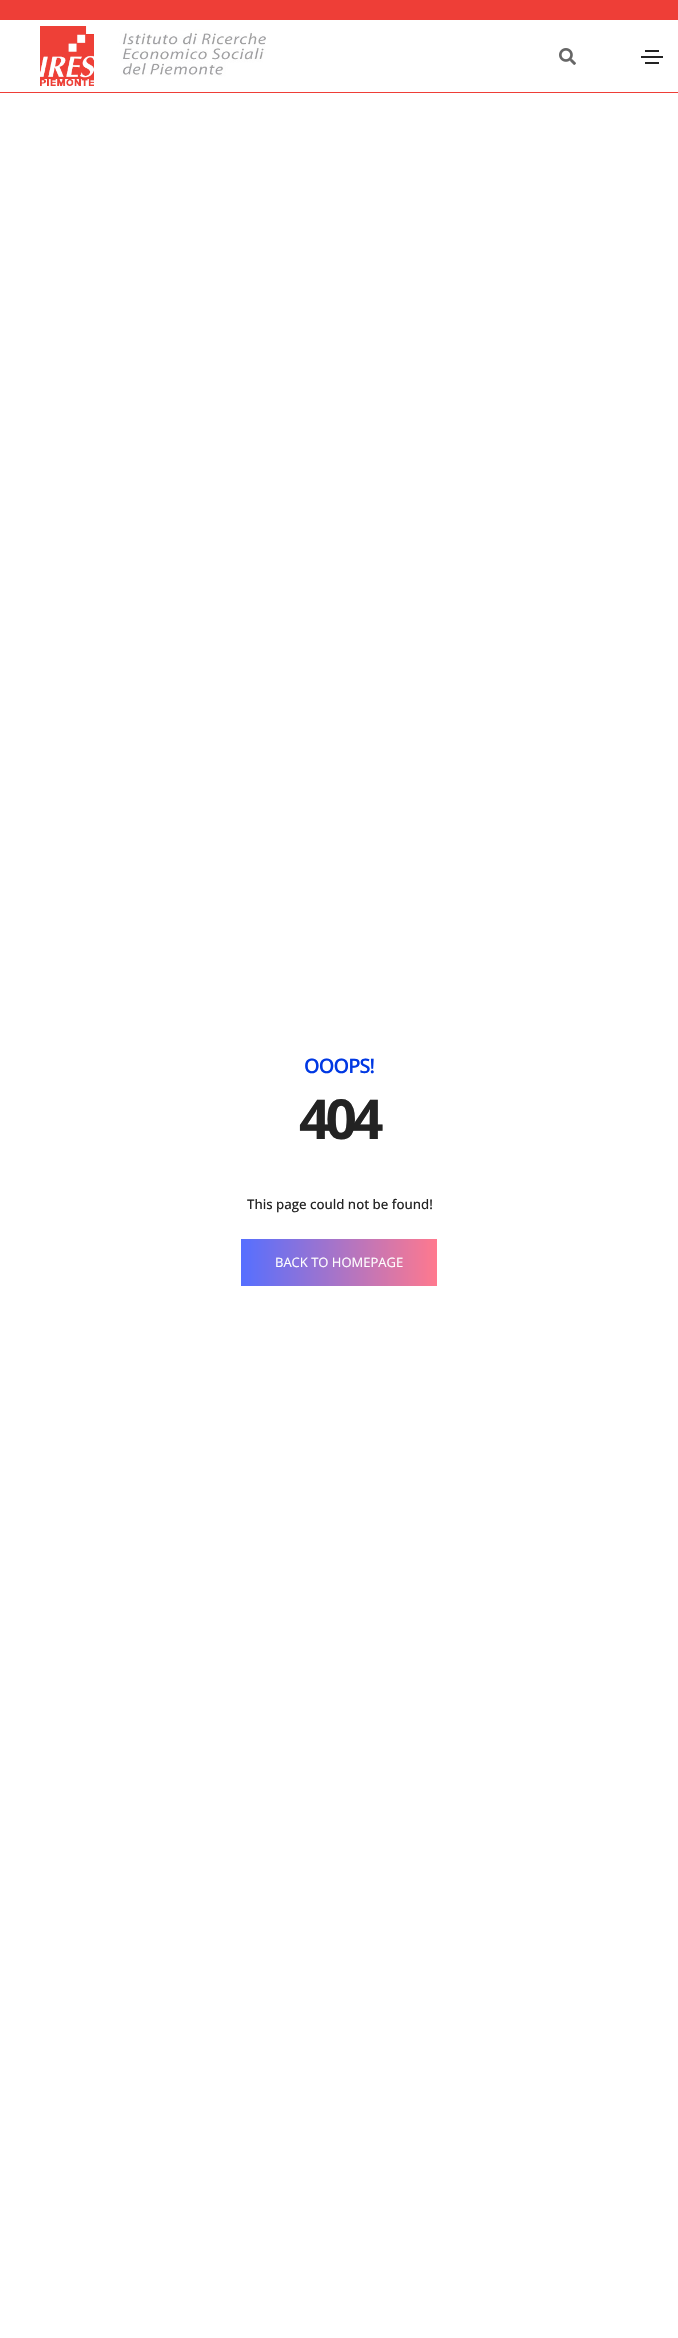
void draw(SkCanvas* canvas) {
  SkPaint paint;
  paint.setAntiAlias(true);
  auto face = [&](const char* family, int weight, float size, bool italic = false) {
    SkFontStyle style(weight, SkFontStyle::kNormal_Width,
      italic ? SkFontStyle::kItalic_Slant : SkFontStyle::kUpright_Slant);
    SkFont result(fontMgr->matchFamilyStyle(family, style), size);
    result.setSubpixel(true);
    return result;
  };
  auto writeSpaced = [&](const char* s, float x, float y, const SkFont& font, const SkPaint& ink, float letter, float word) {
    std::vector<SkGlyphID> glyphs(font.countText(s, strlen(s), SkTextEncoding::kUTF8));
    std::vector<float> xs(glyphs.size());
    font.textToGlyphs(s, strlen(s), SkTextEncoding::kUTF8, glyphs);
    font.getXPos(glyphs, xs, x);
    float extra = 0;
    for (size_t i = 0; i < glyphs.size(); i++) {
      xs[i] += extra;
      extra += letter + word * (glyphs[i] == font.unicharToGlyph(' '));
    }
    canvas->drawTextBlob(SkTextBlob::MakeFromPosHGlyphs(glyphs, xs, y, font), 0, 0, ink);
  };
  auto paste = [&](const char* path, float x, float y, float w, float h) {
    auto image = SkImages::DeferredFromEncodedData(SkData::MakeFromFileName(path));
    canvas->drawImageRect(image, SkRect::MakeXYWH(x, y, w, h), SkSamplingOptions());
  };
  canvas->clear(0xffffffff);
  paint.setColor(0xffee3e37);
  canvas->drawRect(SkRect::MakeXYWH(0, 0, 678, 20), paint);
  canvas->drawRect(SkRect::MakeXYWH(0, 92, 678, 1), paint);
  paste("img/1.png", 40, 26, 226, 60);
  paste("img/2.png", 559, 48, 17, 17);
  {
    const struct { float x, y, w, h; SkColor color; } items[] = {
      {645, 50, 14, 2, 0xff232323},
      {641, 56, 22, 2, 0xff232323},
      {645, 62, 14, 2, 0xff232323},
    };
    for (auto [x, y, w, h, color] : items) {
      paint.setColor(color);
      canvas->drawRect(SkRect::MakeXYWH(x, y, w, h), paint);
    }
  }
  {
    const SkColor colors[] = {0xff556fff, 0xffff798e, 0xff556fff};
    const float stops[] = {0, 0.5f, 1};
    const SkPoint ends[] = {{241, 1263}, {633, 1263}};
    paint.setShader(SkGradientShader::MakeLinear(ends, colors, stops, 3, SkTileMode::kClamp));
    paint.setAlpha(255);
  }
  canvas->drawRect(SkRect::MakeXYWH(241, 1239, 196, 47), paint);
  auto f0 = face("Open Sans", 600, 20);
  paint.setShader(nullptr);
  paint.setColor(0xff0038e3);
  writeSpaced("OOOPS!", 304, 1073, f0, paint, -1, 0);
  auto f1 = face("Open Sans", 700, 55);
  paint.setColor(0xff232323);
  writeSpaced("404", 299, 1139, f1, paint, -5, 0);
  auto f2 = face("Open Sans", 500, 13.25f);
  canvas->drawString("This page could not be found!", 247, 1209, f2, paint);
  auto f3 = face("Open Sans", 400, 13);
  paint.setColor(0xffffffff);
  canvas->drawString("BACK TO HOMEPAGE", 275, 1267, f3, paint);
}
